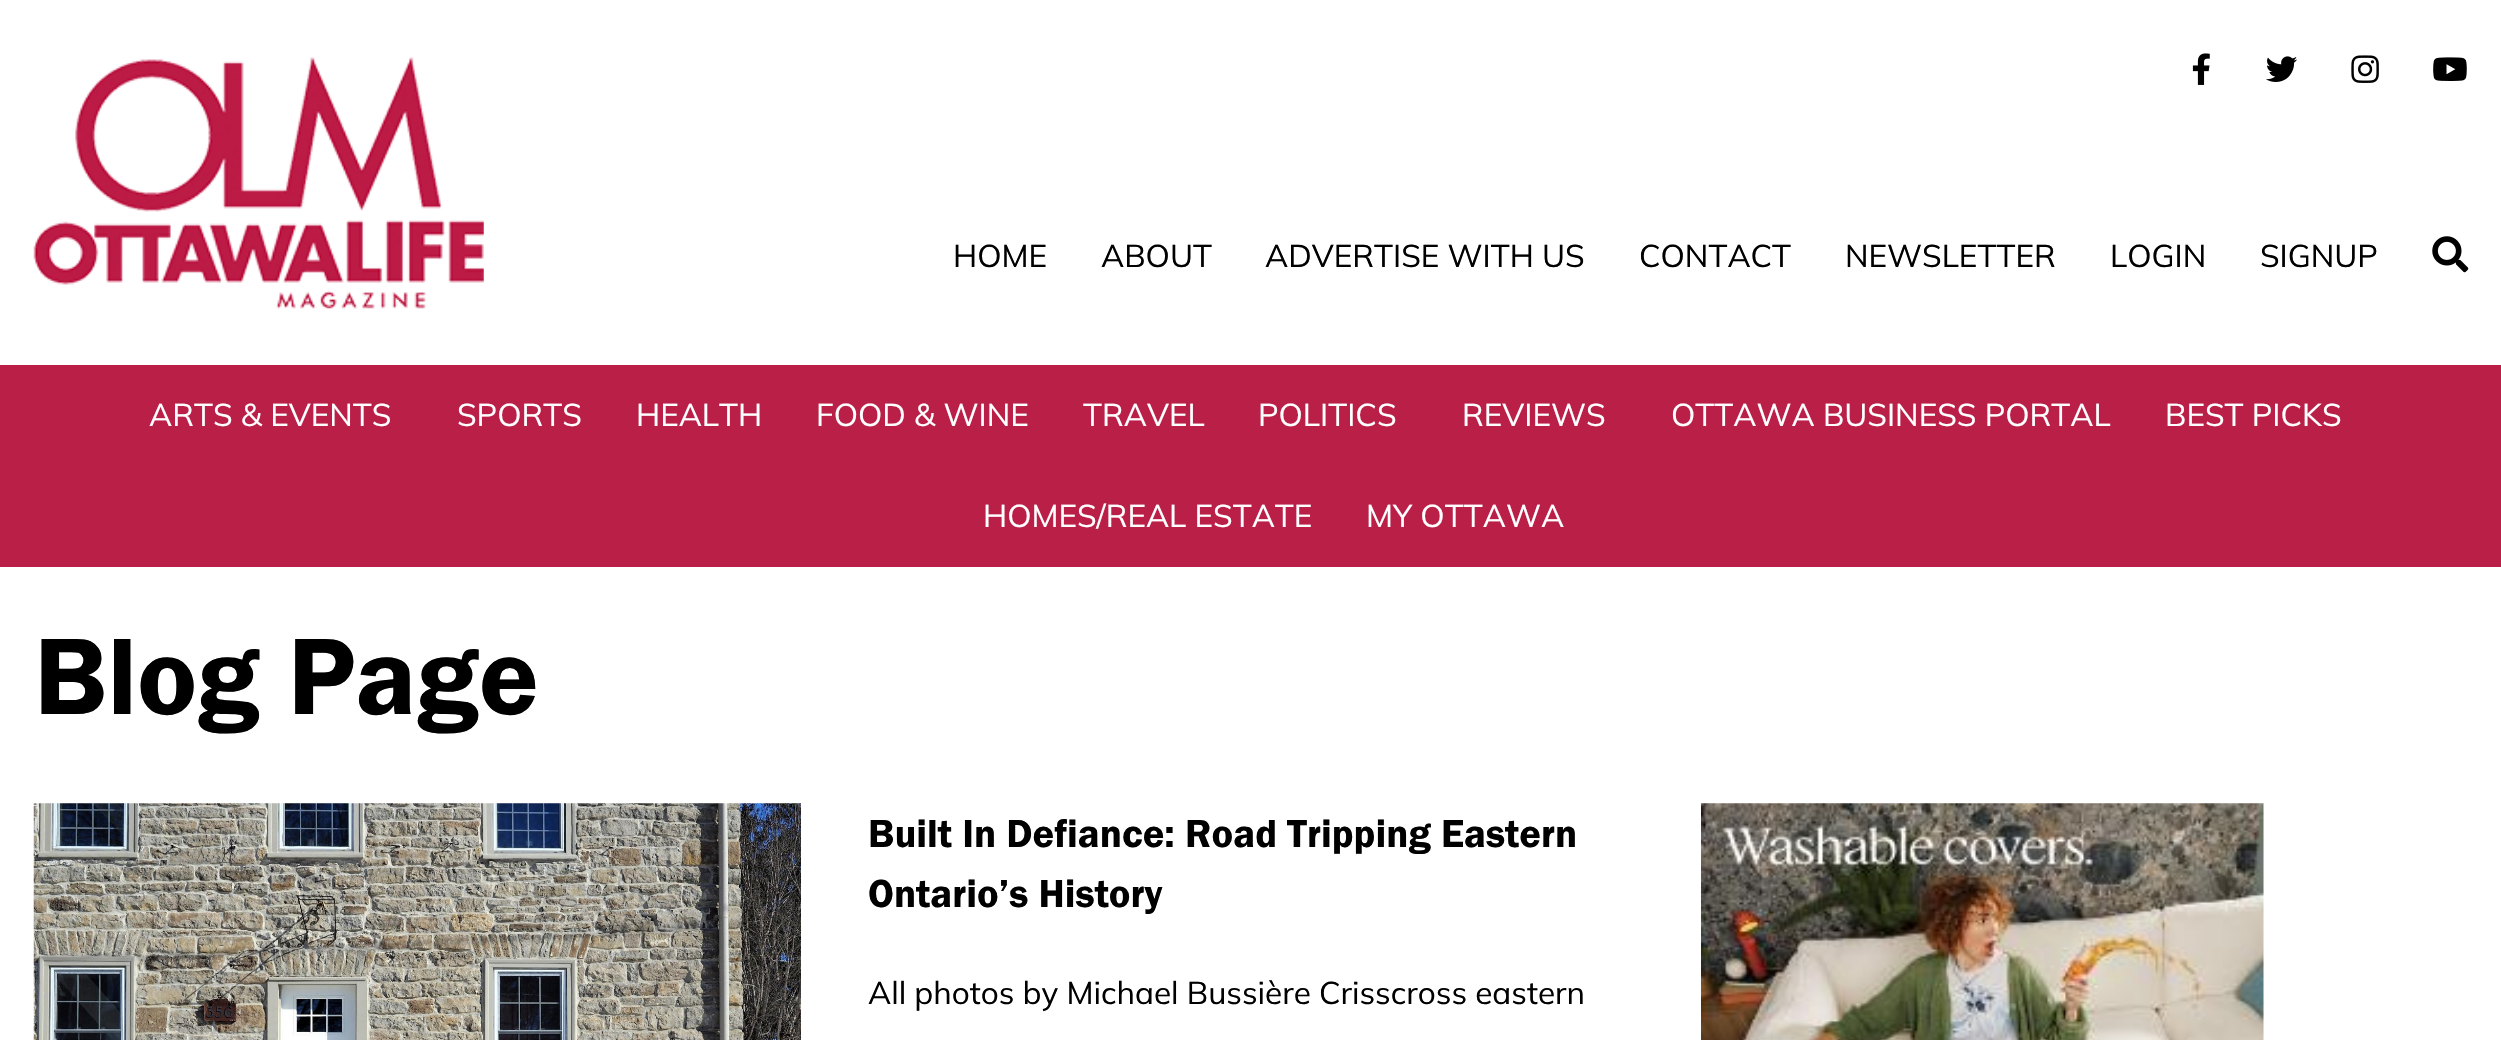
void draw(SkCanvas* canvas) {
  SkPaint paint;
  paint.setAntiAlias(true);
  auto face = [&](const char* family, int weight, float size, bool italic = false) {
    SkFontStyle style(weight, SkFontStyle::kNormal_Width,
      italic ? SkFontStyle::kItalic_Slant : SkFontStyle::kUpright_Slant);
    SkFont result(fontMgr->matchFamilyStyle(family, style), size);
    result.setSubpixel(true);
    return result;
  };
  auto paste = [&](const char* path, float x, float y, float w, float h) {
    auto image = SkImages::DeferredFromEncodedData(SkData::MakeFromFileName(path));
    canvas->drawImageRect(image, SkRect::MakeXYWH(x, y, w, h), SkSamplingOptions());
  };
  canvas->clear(0xffffffff);
  paste("img/1.png", 33, 56, 451, 253);
  paste("img/2.png", 2192, 53, 18, 32);
  paste("img/3.png", 2266, 56, 32, 26);
  paste("img/4.png", 2351, 55, 28, 28);
  paste("img/5.png", 2433, 57, 34, 24);
  paste("img/6.png", 2432, 236, 37, 37);
  paint.setColor(0xffba1f48);
  canvas->drawRect(SkRect::MakeXYWH(0, 365, 2501, 202), paint);
  paste("img/7.png", 33, 803, 768, 237);
  paste("img/8.png", 1701, 803, 563, 237);
  auto f0 = face("Mulish", 400, 31.5f);
  paint.setColor(0xff000000);
  {
    const struct { const char* s; float x, y; } items[] = {
      {"HOME", 953, 267},
      {"ABOUT", 1101, 267},
      {"ADVERTISE WITH US", 1265, 267},
      {"CONTACT", 1639, 267},
      {"NEWSLETTER", 1845, 267},
      {"LOGIN", 2110, 267},
      {"SIGNUP", 2260, 267},
    };
    for (auto [s, x, y] : items) {
      canvas->drawString(s, x, y, f0, paint);
    }
  }
  paint.setColor(0xffffffff);
  {
    const struct { const char* s; float x, y; } items[] = {
      {"ARTS & EVENTS", 149, 426},
      {"SPORTS", 457, 426},
      {"HEALTH", 636, 426},
      {"FOOD & WINE", 816, 426},
      {"TRAVEL", 1083, 426},
      {"POLITICS", 1258, 426},
      {"REVIEWS", 1462, 426},
      {"OTTAWA BUSINESS PORTAL", 1671, 426},
      {"BEST PICKS", 2165, 426},
      {"HOMES/REAL ESTATE", 983, 527},
      {"MY OTTAWA", 1366, 527},
    };
    for (auto [s, x, y] : items) {
      canvas->drawString(s, x, y, f0, paint);
    }
  }
  auto f1 = face("Franklin Gothic", 400, 112.5f);
  paint.setColor(0xff000000);
  canvas->drawString("Blog Page", 34, 714, f1, paint);
  auto f2 = face("Franklin Gothic", 400, 40.5f);
  canvas->drawString("Built In Defiance: Road Tripping Eastern", 868, 847, f2, paint);
  canvas->drawString("Ontario’s History", 868, 907, f2, paint);
  canvas->drawString("All photos by Michael Bussière Crisscross eastern", 868, 1004, f0, paint);
}
